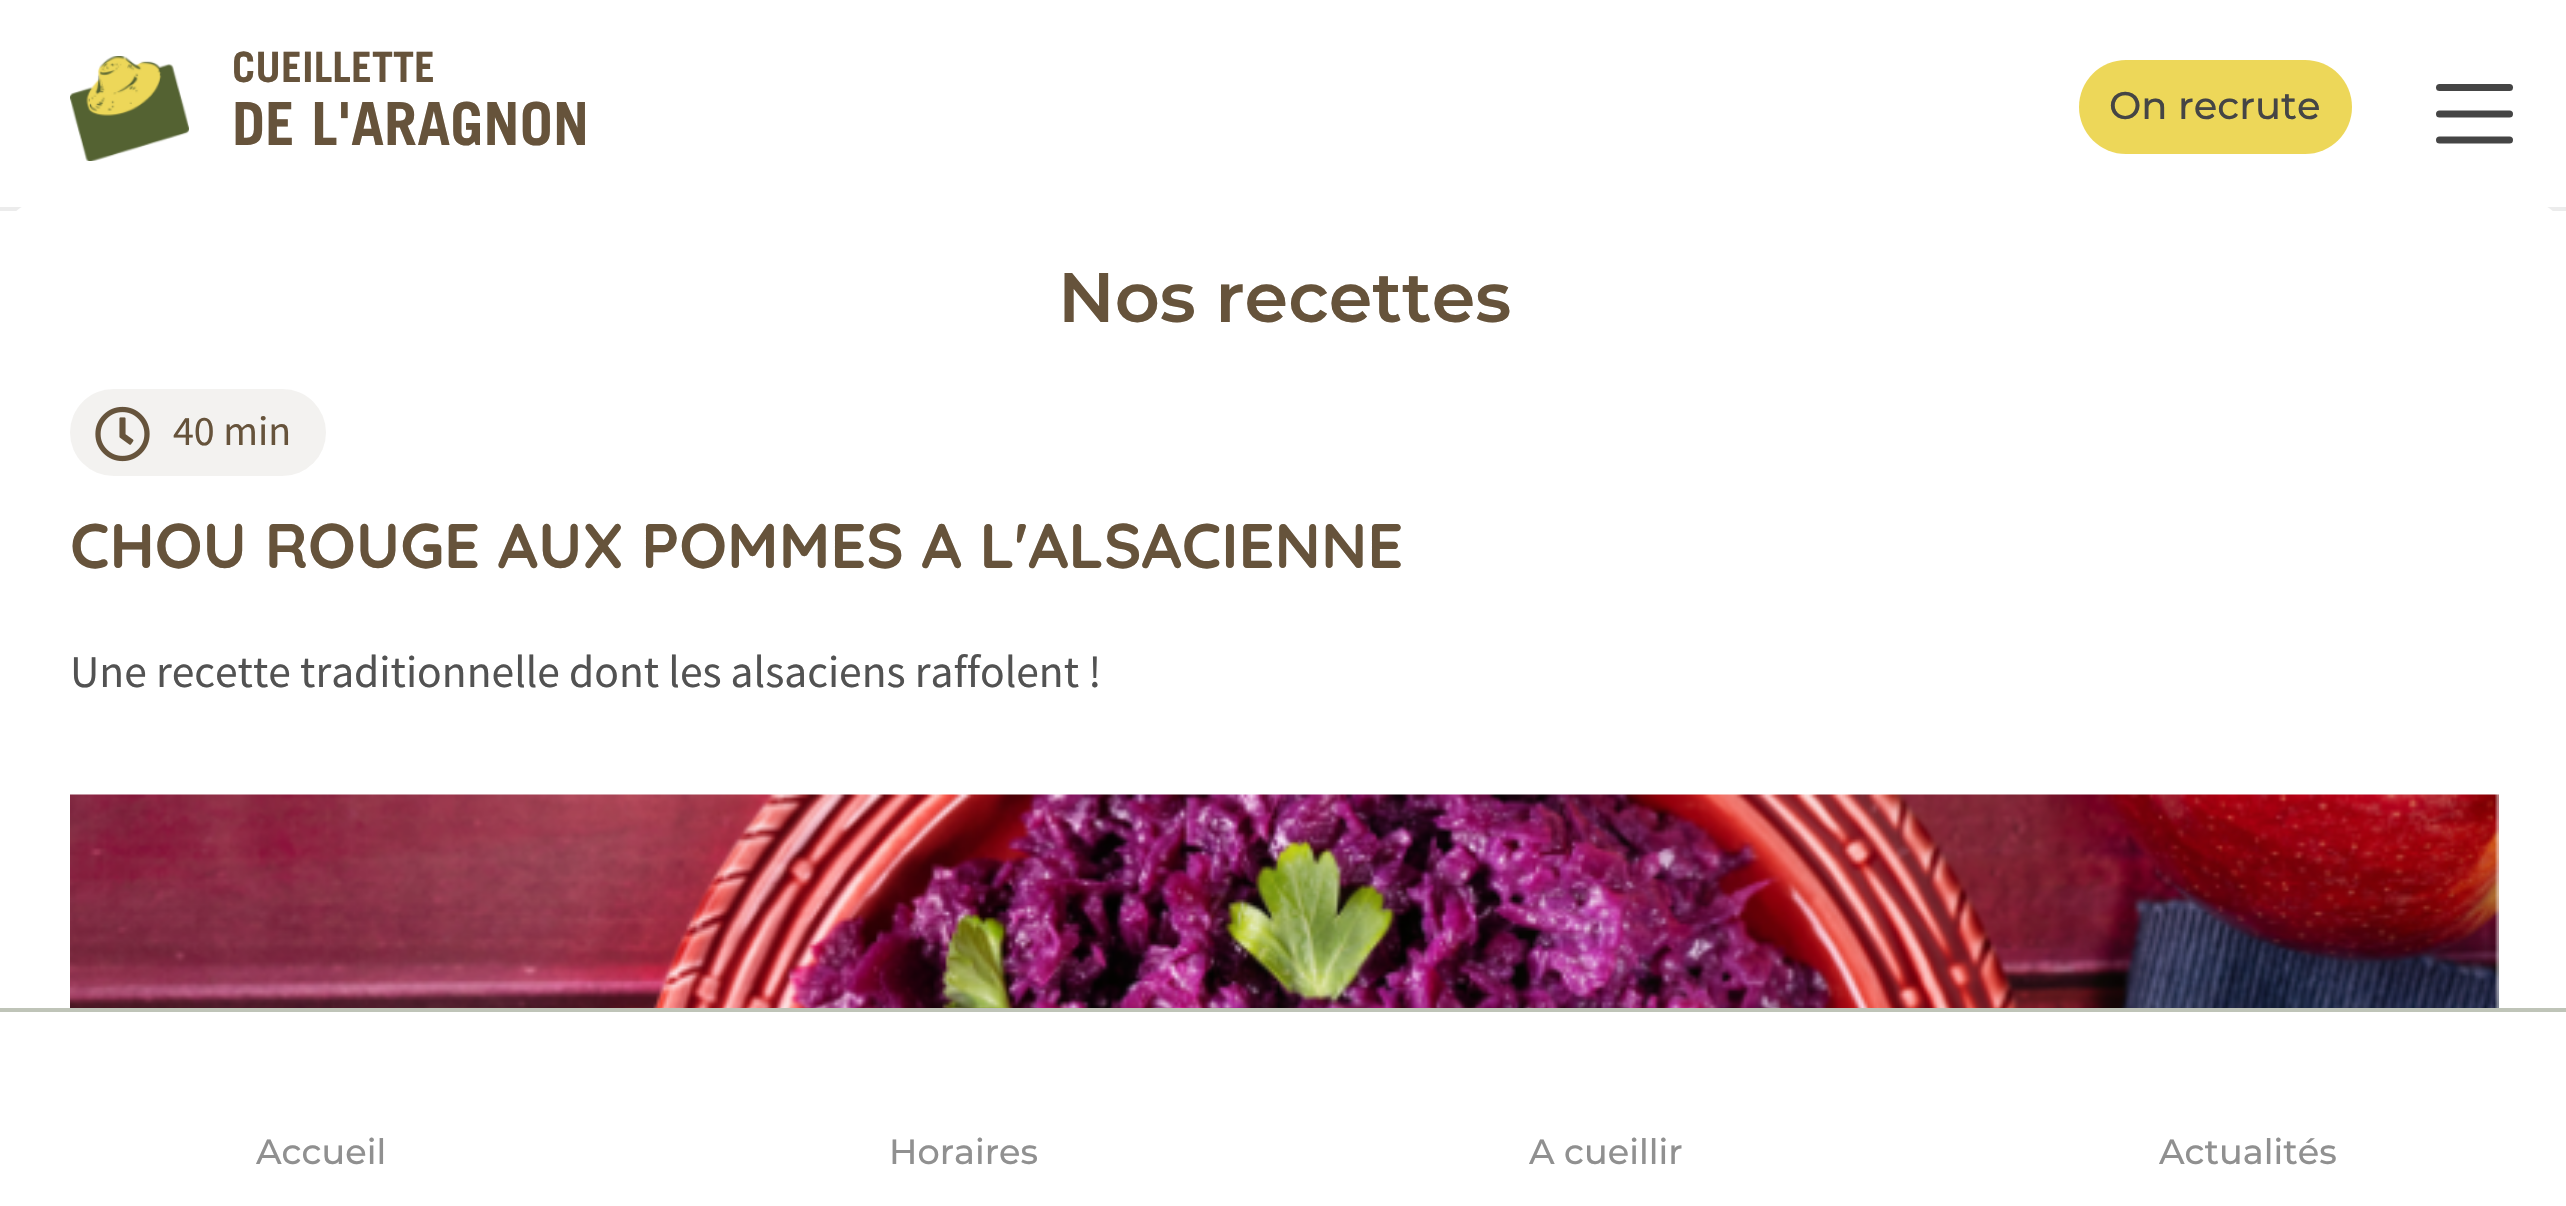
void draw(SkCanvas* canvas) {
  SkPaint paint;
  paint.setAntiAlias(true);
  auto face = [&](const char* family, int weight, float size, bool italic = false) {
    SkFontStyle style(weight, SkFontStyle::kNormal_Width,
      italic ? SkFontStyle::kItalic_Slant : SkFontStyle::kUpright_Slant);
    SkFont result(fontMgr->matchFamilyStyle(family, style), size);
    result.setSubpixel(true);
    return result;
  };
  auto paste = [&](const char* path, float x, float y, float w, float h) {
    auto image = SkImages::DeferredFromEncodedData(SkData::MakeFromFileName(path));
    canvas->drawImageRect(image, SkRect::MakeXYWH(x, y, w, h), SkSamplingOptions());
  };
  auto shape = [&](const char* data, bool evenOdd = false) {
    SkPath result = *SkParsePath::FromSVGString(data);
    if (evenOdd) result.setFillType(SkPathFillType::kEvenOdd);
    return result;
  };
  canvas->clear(0xffffffff);
  paint.setColor(0xffececec);
  canvas->drawRect(SkRect::MakeXYWH(0, 207, 2566, 4), paint);
  paste("img/1.png", 70, 56, 119, 105);
  paint.setColor(0xffedd759);
  canvas->drawRoundRect(SkRect::MakeXYWH(2079, 60, 273, 94), 47, 47, paint);
  paint.setStroke(true);
  paint.setStrokeWidth(7);
  paint.setStrokeCap(SkPaint::kRound_Cap);
  paint.setColor(0xff454545);
  canvas->drawPath(shape("M2439.5 87.5H2509.5"), paint);
  canvas->drawPath(shape("M2439.5 114H2509.5"), paint);
  canvas->drawPath(shape("M2439.5 140H2509.5"), paint);
  paint.setStroke(false);
  paint.setColor(0xffffffff);
  canvas->drawRoundRect(SkRect::MakeXYWH(0, 200, 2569, 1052), 46, 46, paint);
  paste("img/2.png", 95, 406, 55, 56);
  paint.setColor(0x1466533b);
  canvas->drawRoundRect(SkRect::MakeXYWH(70, 389, 256, 87), 43.5f, 43.5f, paint);
  paste("img/3.png", 70, 794, 2429, 214);
  paint.setColor(0xffbfc4b8);
  canvas->drawRect(SkRect::MakeXYWH(0, 1008, 2566, 4), paint);
  auto f0 = face("Trade Gothic", 700, 42);
  paint.setColor(0xff66533b);
  canvas->drawString("CUEILLETTE", 232, 82, f0, paint);
  auto f1 = face("Trade Gothic", 700, 59.5f);
  canvas->drawString("DE L'ARAGNON", 232, 145, f1, paint);
  auto f2 = face("Montserrat", 500, 38.5f);
  paint.setColor(0xff454545);
  canvas->drawString("On recrute", 2109, 119, f2, paint);
  auto f3 = face("Montserrat", 600, 70);
  paint.setColor(0xff66533b);
  canvas->drawString("Nos recettes", 1058, 322, f3, paint);
  auto f4 = face("Source Sans Pro", 400, 42);
  canvas->drawString("40 min", 173, 445, f4, paint);
  auto f5 = face("Quicksand", 700, 63);
  canvas->drawString("CHOU ROUGE AUX POMMES A L'ALSACIENNE", 70, 568, f5, paint);
  auto f6 = face("Source Sans Pro", 400, 45.5f);
  paint.setColor(0xff525252);
  canvas->drawString("Une recette traditionnelle dont les alsaciens raffolent !", 70, 687, f6, paint);
  auto f7 = face("Montserrat", 500, 35);
  paint.setColor(0xff909090);
  {
    const struct { const char* s; float x, y; } items[] = {
      {"Accueil", 256, 1164},
      {"Horaires", 889, 1164},
      {"A cueillir", 1529, 1164},
      {"Actualités", 2159, 1164},
    };
    for (auto [s, x, y] : items) {
      canvas->drawString(s, x, y, f7, paint);
    }
  }
}
